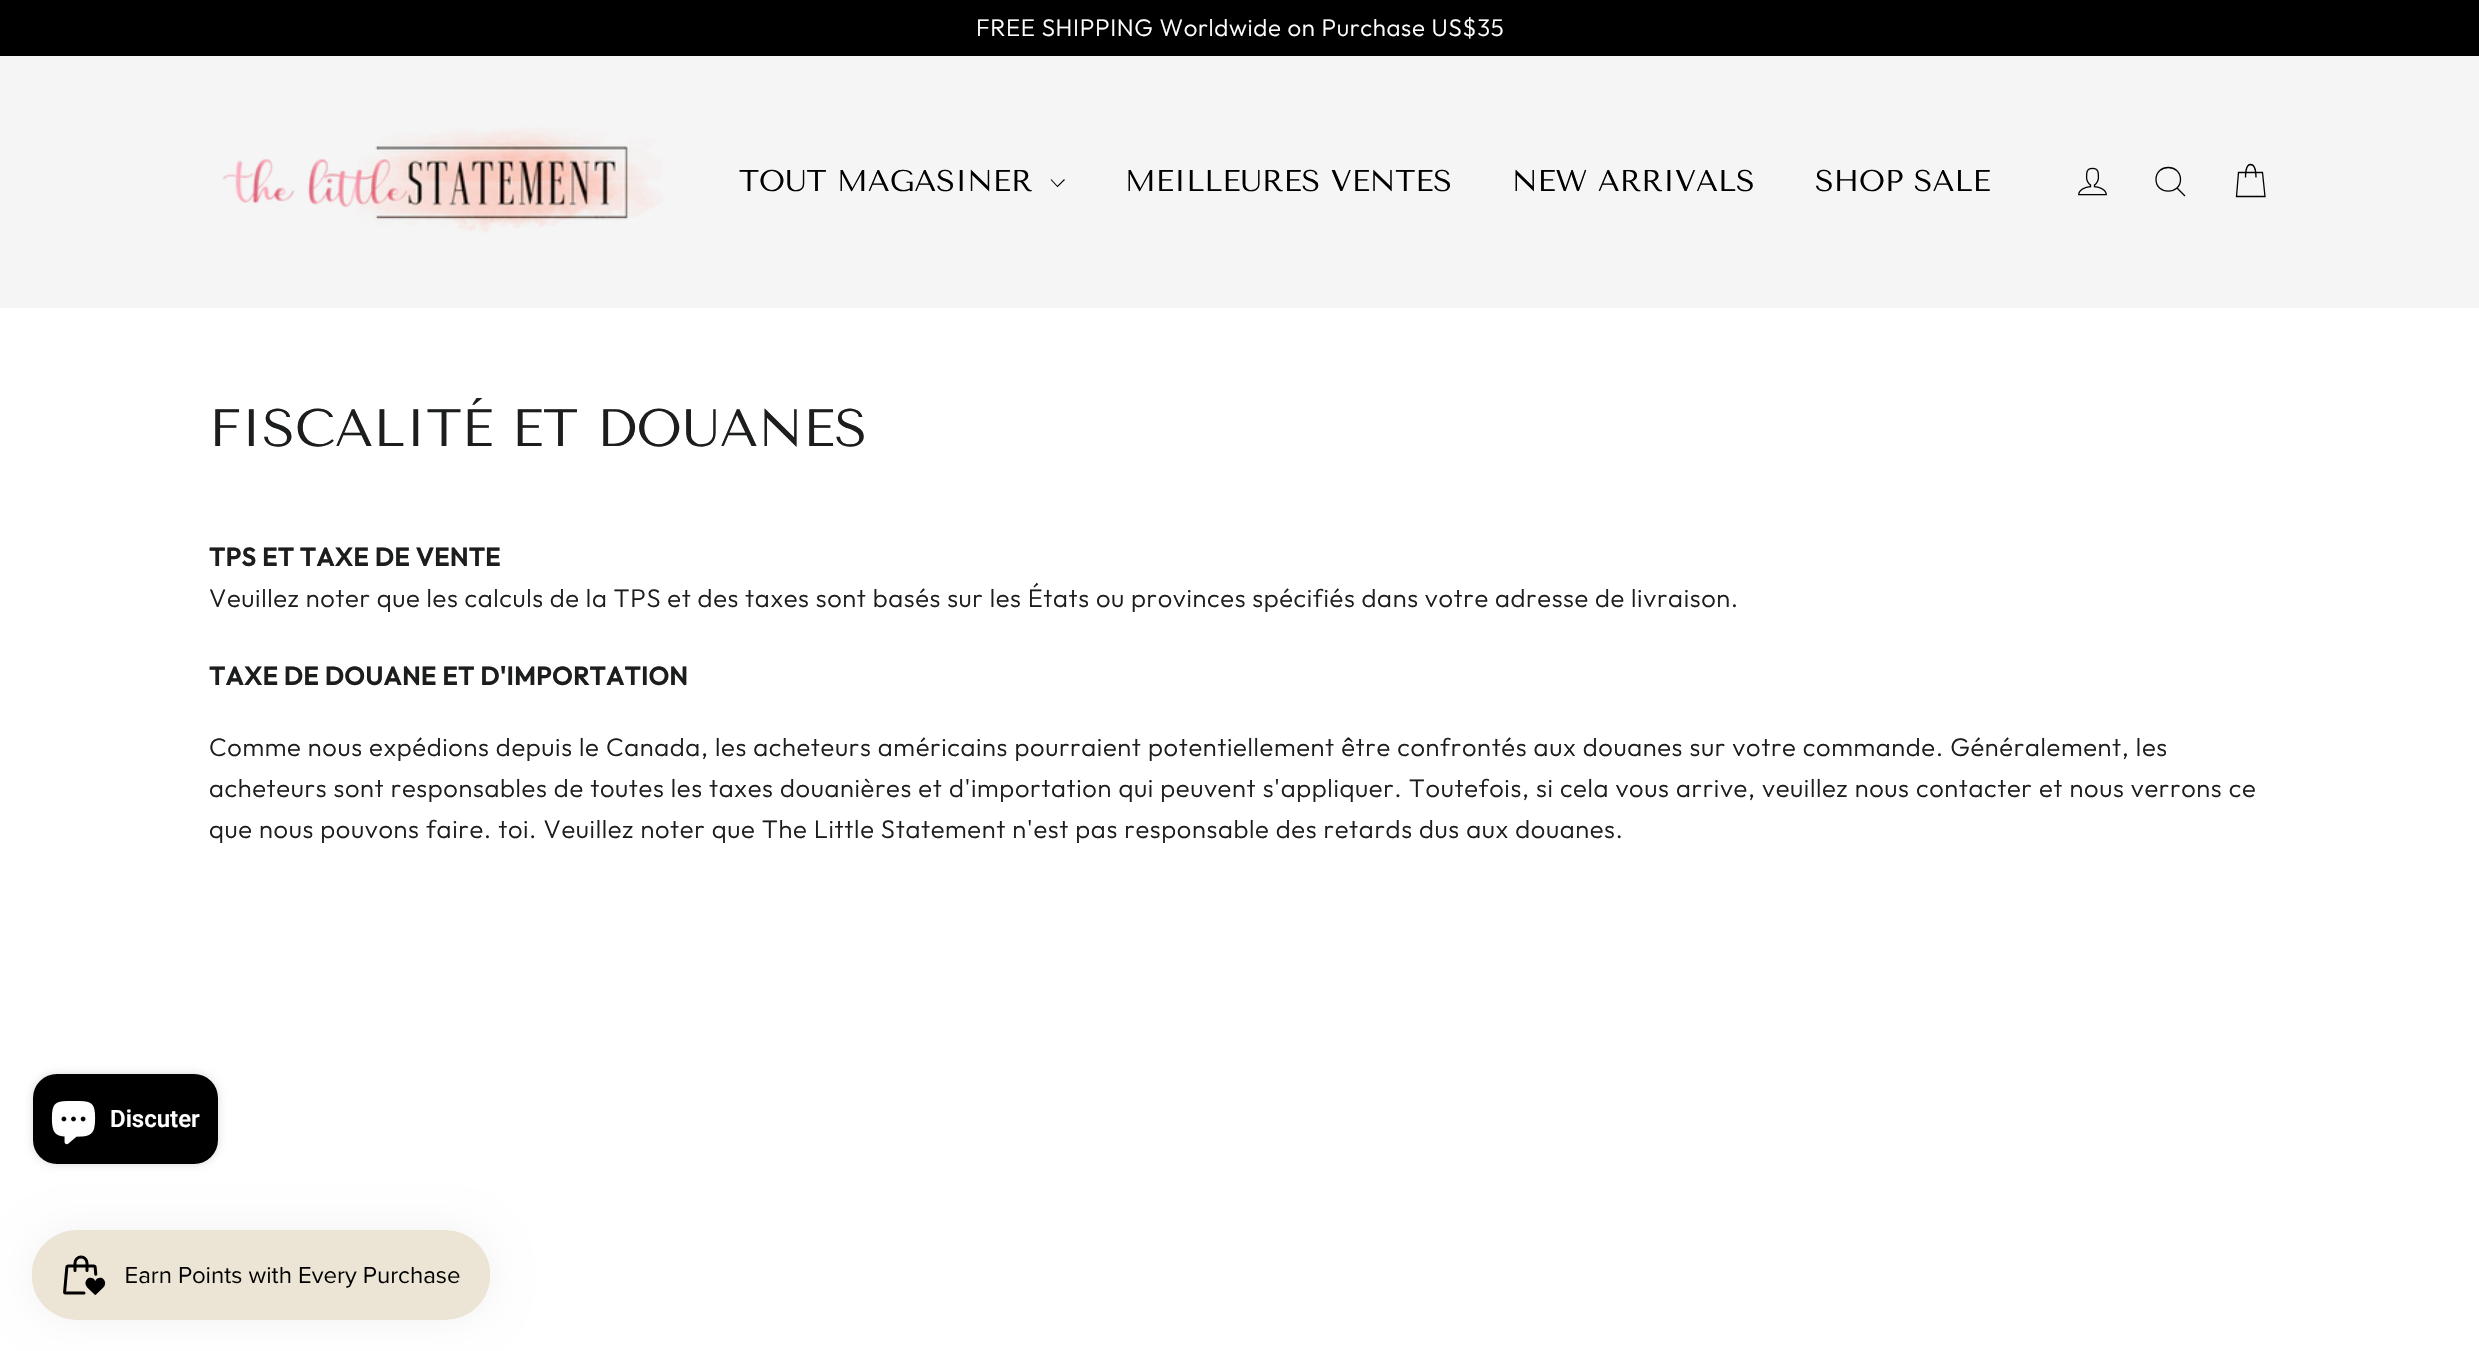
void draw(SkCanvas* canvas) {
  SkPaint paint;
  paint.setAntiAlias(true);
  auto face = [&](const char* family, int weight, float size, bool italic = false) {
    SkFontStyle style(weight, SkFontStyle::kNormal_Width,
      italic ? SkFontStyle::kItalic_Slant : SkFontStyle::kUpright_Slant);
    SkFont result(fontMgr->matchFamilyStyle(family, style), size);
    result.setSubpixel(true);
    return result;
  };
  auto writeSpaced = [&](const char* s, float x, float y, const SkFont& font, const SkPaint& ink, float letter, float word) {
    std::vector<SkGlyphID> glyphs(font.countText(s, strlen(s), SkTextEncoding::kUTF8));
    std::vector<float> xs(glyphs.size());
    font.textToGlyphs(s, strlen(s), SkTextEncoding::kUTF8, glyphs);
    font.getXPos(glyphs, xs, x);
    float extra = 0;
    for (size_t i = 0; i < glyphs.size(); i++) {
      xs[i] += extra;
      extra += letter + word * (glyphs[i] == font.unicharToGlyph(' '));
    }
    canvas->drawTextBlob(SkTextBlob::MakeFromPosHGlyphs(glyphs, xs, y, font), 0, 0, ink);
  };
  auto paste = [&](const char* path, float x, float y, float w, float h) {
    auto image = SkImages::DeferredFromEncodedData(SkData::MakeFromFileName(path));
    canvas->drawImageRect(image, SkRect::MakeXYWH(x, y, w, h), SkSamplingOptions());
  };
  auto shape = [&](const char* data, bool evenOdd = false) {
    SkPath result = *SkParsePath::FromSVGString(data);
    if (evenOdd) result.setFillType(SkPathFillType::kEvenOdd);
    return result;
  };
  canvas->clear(0xffffffff);
  paint.setColor(0xff000000);
  canvas->drawRect(SkRect::MakeXYWH(0, 0, 2479, 56), paint);
  paint.setColor(0xfff5f5f5);
  canvas->drawRect(SkRect::MakeXYWH(0, 56, 2479, 252), paint);
  paste("img/1.png", 222, 127, 441, 106);
  paint.setStroke(true);
  paint.setStrokeWidth(1.1f);
  paint.setColor(0xff000000);
  canvas->drawPath(shape("M1051 179.5L1057.5 186.5L1064.5 179.5"), paint);
  paste("img/2.png", 2078, 167, 29, 29);
  paint.setStrokeWidth(1.3f);
  canvas->drawPath(shape("M2180.5 179.5C2180.5 195 2156 195 2156 179.5C2156 163.5 2180.5 163.5 2180.5 179.5ZM2185 196L2177 188"), paint);
  canvas->drawPath(shape("M2245.5 177.5C2245.5 167 2247.5 164.5 2250.5 164.5C2253.5 164.5 2256 167 2256 177.5M2238.5 172.5H2262.5L2265 196.5H2236.5Z"), paint);
  paint.setStroke(false);
  paint.setColor(0x26000000);
  paint.setMaskFilter(SkMaskFilter::MakeBlur(kNormal_SkBlurStyle, 4));
  canvas->drawRoundRect(SkRect::MakeXYWH(33, 1074, 185, 90), 24, 24, paint);
  paint.setMaskFilter(nullptr);
  paint.setColor(0xff000000);
  canvas->drawRoundRect(SkRect::MakeXYWH(33, 1074, 185, 90), 24, 24, paint);
  paste("img/3.png", 51, 1101, 45, 44);
  paint.setColor(0x0d000000);
  paint.setMaskFilter(SkMaskFilter::MakeBlur(kNormal_SkBlurStyle, 19));
  canvas->drawRoundRect(SkRect::MakeXYWH(32, 1230, 459, 90), 45, 45, paint);
  paint.setMaskFilter(nullptr);
  paste("img/4.png", 32, 1230, 458, 90);
  auto f0 = face("Outfit", 300, 24);
  paint.setColor(0xffffffff);
  writeSpaced("FREE SHIPPING Worldwide on Purchase US$35", 976, 36, f0, paint, 0.64f, 0.25f);
  auto f1 = face("Tenor Sans", 400, 30);
  paint.setColor(0xff000000);
  {
    const struct { const char* s; float x, y; } items[] = {
      {"TOUT MAGASINER", 739, 191},
      {"MEILLEURES VENTES", 1125, 191},
      {"NEW ARRIVALS", 1512, 191},
      {"SHOP SALE", 1815, 191},
    };
    for (auto [s, x, y] : items) {
      canvas->drawString(s, x, y, f1, paint);
    }
  }
  auto f2 = face("Tenor Sans", 400, 52.5f);
  paint.setColor(0xff1c1d1d);
  canvas->drawString("FISCALITÉ ET DOUANES", 209, 446, f2, paint);
  auto f3 = face("Outfit", 700, 25.5f);
  writeSpaced("TPS ET TAXE DE VENTE", 209, 566, f3, paint, 0.64f, 0);
  auto f4 = face("Outfit", 300, 25.5f);
  writeSpaced("Veuillez noter que les calculs de la TPS et des taxes sont basés sur les États ou provinces spécifiés dans votre adresse de livraison.", 209, 607, f4, paint, 0.64f, 0);
  writeSpaced("TAXE DE DOUANE ET D'IMPORTATION", 209, 685, f3, paint, 0.64f, 0);
  writeSpaced("Comme nous expédions depuis le Canada, les acheteurs américains pourraient potentiellement être confrontés aux douanes sur votre commande. Généralement, les", 209, 756, f4, paint, 0.64f, 0.3f);
  writeSpaced("acheteurs sont responsables de toutes les taxes douanières et d'importation qui peuvent s'appliquer. Toutefois, si cela vous arrive, veuillez nous contacter et nous verrons ce", 209, 797, f4, paint, 0.64f, 0.3f);
  writeSpaced("que nous pouvons faire. toi. Veuillez noter que The Little Statement n'est pas responsable des retards dus aux douanes.", 209, 838, f4, paint, 0.64f, 0.25f);
  auto f5 = face("Roboto", 600, 24);
  paint.setColor(0xffffffff);
  canvas->drawString("Discuter", 110, 1127, f5, paint);
}
